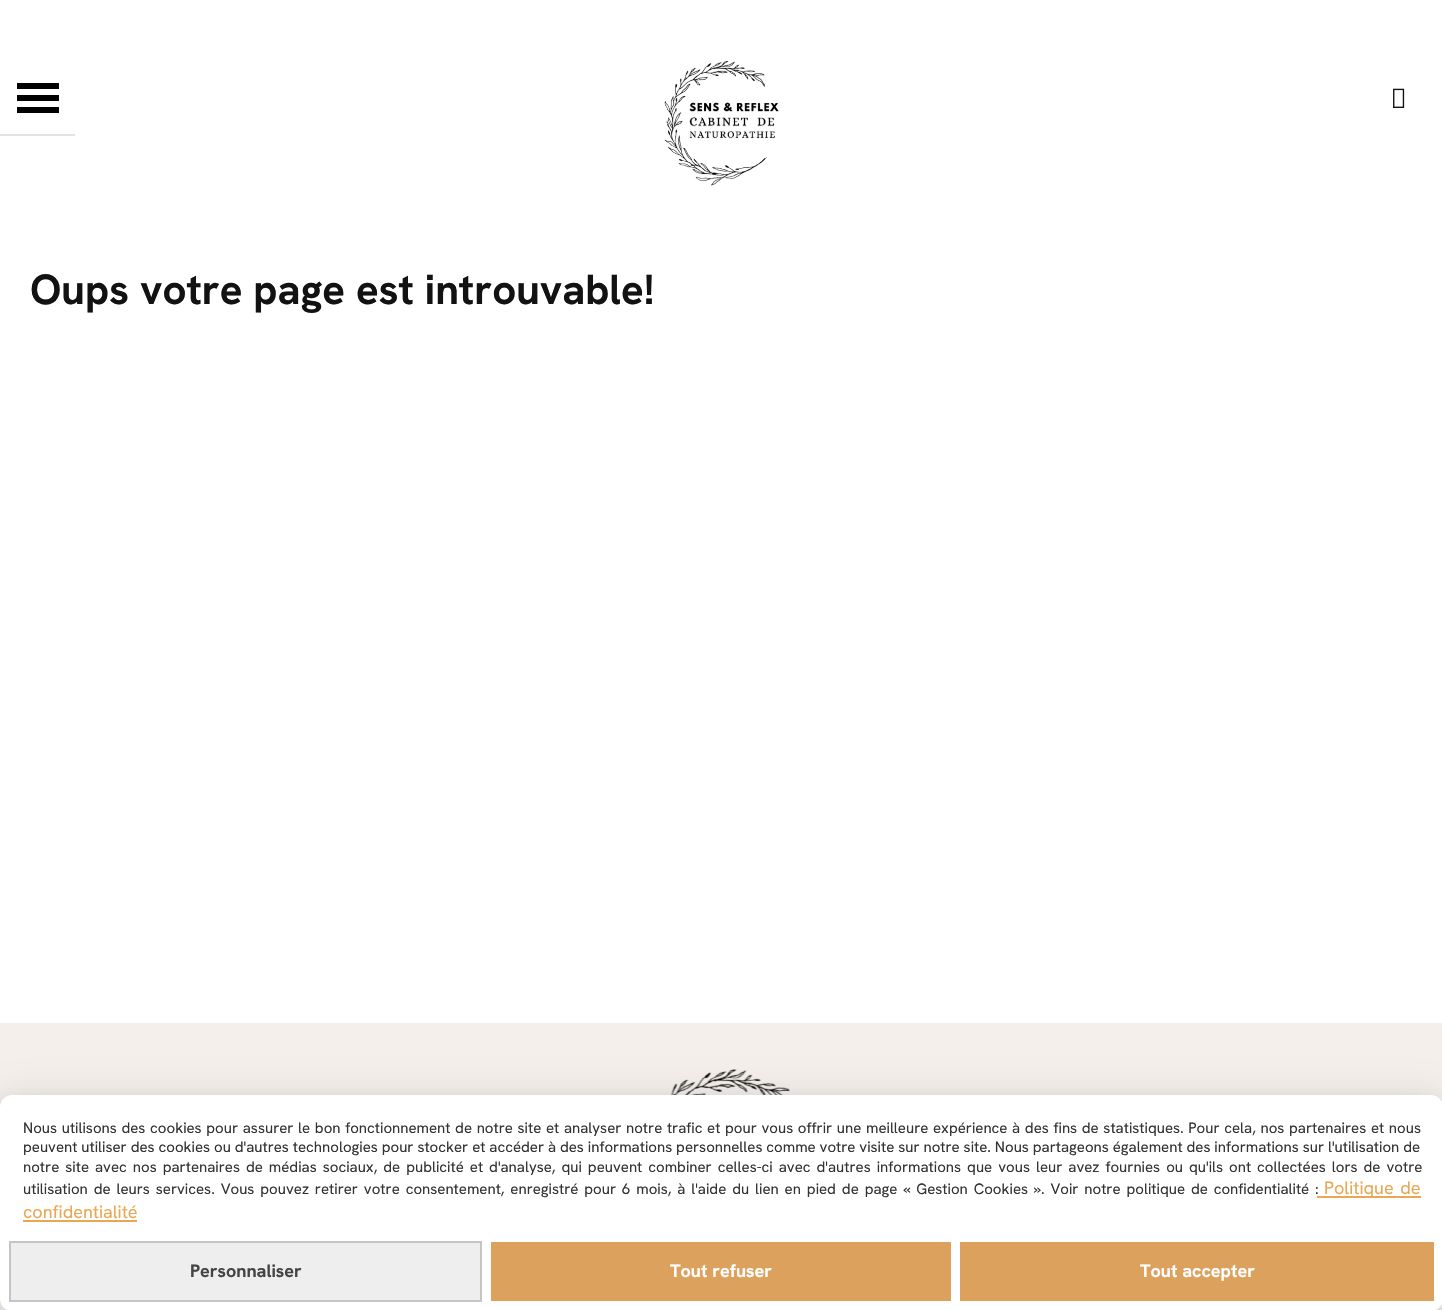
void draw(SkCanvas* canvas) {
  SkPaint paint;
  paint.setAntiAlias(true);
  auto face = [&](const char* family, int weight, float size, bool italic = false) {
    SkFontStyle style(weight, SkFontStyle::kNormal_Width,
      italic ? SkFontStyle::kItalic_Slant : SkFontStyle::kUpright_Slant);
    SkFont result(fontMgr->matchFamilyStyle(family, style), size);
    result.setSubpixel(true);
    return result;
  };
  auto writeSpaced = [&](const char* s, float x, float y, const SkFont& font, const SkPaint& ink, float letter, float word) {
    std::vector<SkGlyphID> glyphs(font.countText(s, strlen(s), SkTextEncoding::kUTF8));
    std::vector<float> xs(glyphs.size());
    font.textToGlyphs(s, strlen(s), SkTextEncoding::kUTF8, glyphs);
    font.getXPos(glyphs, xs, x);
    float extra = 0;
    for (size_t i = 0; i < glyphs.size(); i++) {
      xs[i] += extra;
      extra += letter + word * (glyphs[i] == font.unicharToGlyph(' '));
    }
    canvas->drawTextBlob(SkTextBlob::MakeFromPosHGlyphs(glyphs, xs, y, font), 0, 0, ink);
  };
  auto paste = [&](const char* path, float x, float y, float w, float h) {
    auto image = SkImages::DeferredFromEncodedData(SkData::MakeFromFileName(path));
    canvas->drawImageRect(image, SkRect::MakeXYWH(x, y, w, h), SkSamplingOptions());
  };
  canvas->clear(0xffffffff);
  paste("img/1.png", 664, 61, 115, 125);
  {
    const struct { float x, y, w, h; SkColor color; } items[] = {
      {0, 134, 75, 2, 0xffe3e1e1},
      {17, 83, 42, 6, 0xff000000},
      {17, 95, 42, 6, 0xff000000},
      {17, 107, 42, 6, 0xff000000},
    };
    for (auto [x, y, w, h, color] : items) {
      paint.setColor(color);
      canvas->drawRect(SkRect::MakeXYWH(x, y, w, h), paint);
    }
  }
  paste("img/2.png", 1393, 88, 12, 20);
  paint.setColor(0xfff4efea);
  canvas->drawRect(SkRect::MakeXYWH(0, 1023, 1442, 287), paint);
  paste("img/3.png", 671, 1069, 119, 26);
  paint.setColor(0x0d000000);
  paint.setMaskFilter(SkMaskFilter::MakeBlur(kNormal_SkBlurStyle, 4.5f));
  canvas->drawRoundRect(SkRect::MakeXYWH(0, 1098, 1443, 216), 12, 12, paint);
  paint.setMaskFilter(nullptr);
  paint.setColor(0x26000000);
  paint.setMaskFilter(SkMaskFilter::MakeBlur(kNormal_SkBlurStyle, 18));
  canvas->drawRoundRect(SkRect::MakeXYWH(0, 1101, 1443, 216), 12, 12, paint);
  paint.setMaskFilter(nullptr);
  paint.setColor(0xffffffff);
  canvas->drawRoundRect(SkRect::MakeXYWH(0, 1095, 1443, 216), 12, 12, paint);
  paint.setColor(0xffe8a753);
  canvas->drawRect(SkRect::MakeXYWH(1317, 1196, 104, 2), paint);
  canvas->drawRect(SkRect::MakeXYWH(23, 1220, 114, 2), paint);
  paint.setColor(0xffeeeeee);
  canvas->drawRect(SkRect::MakeXYWH(10, 1242, 471, 59), paint);
  paint.setStroke(true);
  paint.setStrokeWidth(2);
  paint.setColor(0xffc5c5c5);
  canvas->drawRect(SkRect::MakeXYWH(10, 1242, 471, 59), paint);
  paint.setStroke(false);
  paint.setColor(0xffdda15e);
  canvas->drawRect(SkRect::MakeXYWH(491, 1242, 460, 59), paint);
  canvas->drawRect(SkRect::MakeXYWH(960, 1242, 474, 59), paint);
  auto f0 = face("Hanken Grotesk", 700, 42);
  paint.setColor(0xff121212);
  canvas->drawString("Oups votre page est introuvable!", 30, 304, f0, paint);
  auto f1 = face("Hanken Grotesk", 400, 15);
  paint.setColor(0xff333333);
  writeSpaced("Nous utilisons des cookies pour assurer le bon fonctionnement de notre site et analyser notre trafic et pour vous offrir une meilleure expérience à des fins de statistiques. Pour cela, nos partenaires et nous", 23, 1133, f1, paint, 0, 0.75f);
  canvas->drawString("peuvent utiliser des cookies ou d'autres technologies pour stocker et accéder à des informations personnelles comme votre visite sur notre site. Nous partageons également des informations sur l'utilisation de", 23, 1152, f1, paint);
  writeSpaced("notre site avec nos partenaires de médias sociaux, de publicité et d'analyse, qui peuvent combiner celles-ci avec d'autres informations que vous leur avez fournies ou qu'ils ont collectées lors de votre", 23, 1172, f1, paint, 0, 2.1f);
  writeSpaced("utilisation de leurs services. Vous pouvez retirer votre consentement, enregistré pour 6 mois, à l'aide du lien en pied de page « Gestion Cookies ». Voir notre politique de confidentialité :", 23, 1194, f1, paint, 0, 2);
  auto f2 = face("Hanken Grotesk", 400, 18);
  paint.setColor(0xffe8a753);
  writeSpaced("Politique de", 1324, 1194, f2, paint, 0, 2);
  canvas->drawString("confidentialité", 23, 1218, f2, paint);
  auto f3 = face("Hanken Grotesk", 700, 18);
  paint.setColor(0xff444444);
  canvas->drawString("Personnaliser", 190, 1277, f3, paint);
  paint.setColor(0xffffffff);
  canvas->drawString("Tout refuser", 670, 1277, f3, paint);
  canvas->drawString("Tout accepter", 1140, 1277, f3, paint);
}
